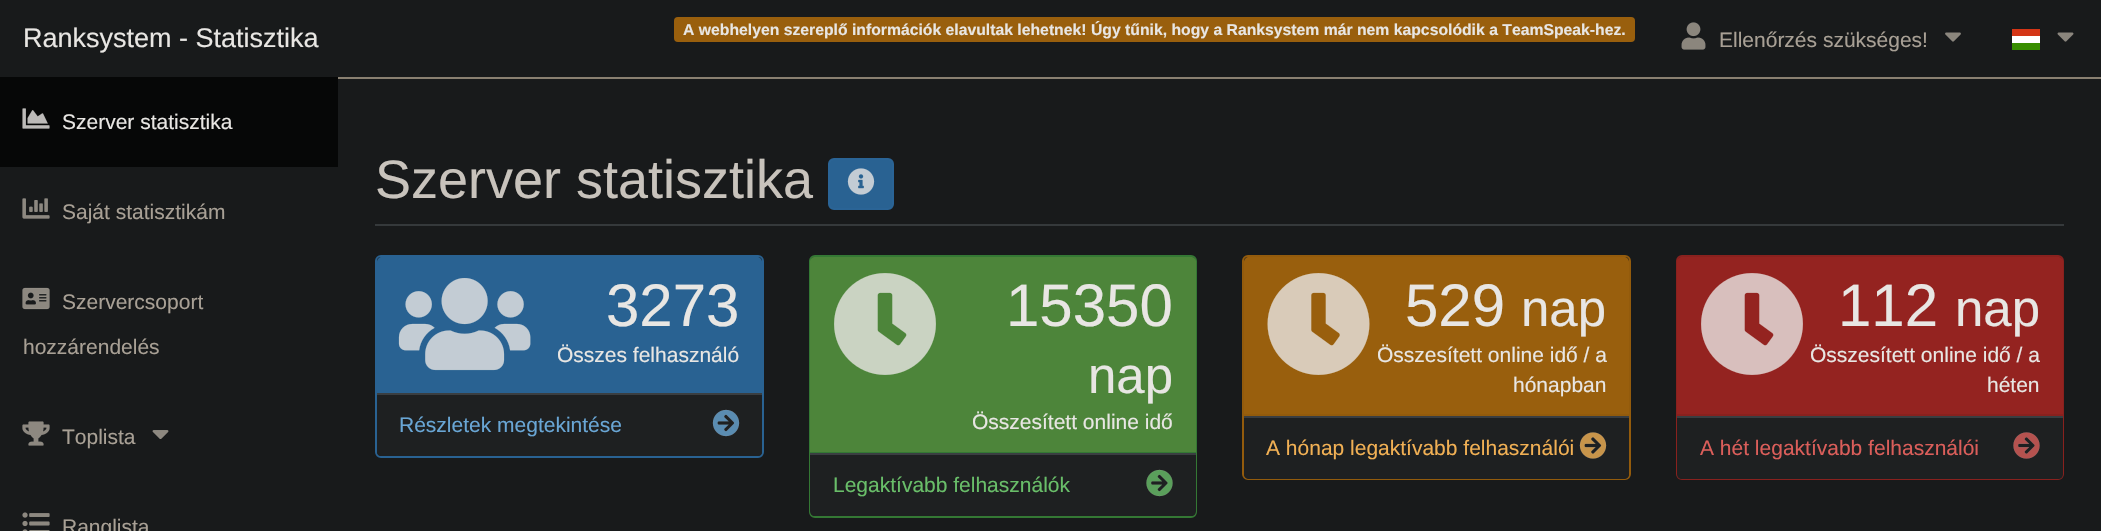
void draw(SkCanvas* canvas) {
  SkPaint paint;
  paint.setAntiAlias(true);
  auto face = [&](const char* family, int weight, float size, bool italic = false) {
    SkFontStyle style(weight, SkFontStyle::kNormal_Width,
      italic ? SkFontStyle::kItalic_Slant : SkFontStyle::kUpright_Slant);
    SkFont result(fontMgr->matchFamilyStyle(family, style), size);
    result.setSubpixel(true);
    return result;
  };
  auto paste = [&](const char* path, float x, float y, float w, float h) {
    auto image = SkImages::DeferredFromEncodedData(SkData::MakeFromFileName(path));
    canvas->drawImageRect(image, SkRect::MakeXYWH(x, y, w, h), SkSamplingOptions());
  };
  auto shape = [&](const char* data, bool evenOdd = false) {
    SkPath result = *SkParsePath::FromSVGString(data);
    if (evenOdd) result.setFillType(SkPathFillType::kEvenOdd);
    return result;
  };
  canvas->clear(0xff181a1b);
  paint.setColor(0xff898071);
  canvas->drawRect(SkRect::MakeXYWH(338, 77, 1763, 2), paint);
  paint.setColor(0xff995f0d);
  canvas->drawRoundRect(SkRect::MakeXYWH(674, 17, 961, 25), 4, 4, paint);
  paste("img/1.png", 1681, 22, 25, 28);
  paste("img/2.png", 1945, 32, 16, 10);
  {
    const struct { float x, y, w, h; SkColor color; } items[] = {
      {2012, 36, 28, 7, 0xffffffff},
      {2012, 43, 28, 7, 0xff388d00},
      {2012, 29, 28, 7, 0xffd43516},
    };
    for (auto [x, y, w, h, color] : items) {
      paint.setColor(color);
      canvas->drawRect(SkRect::MakeXYWH(x, y, w, h), paint);
    }
  }
  paste("img/3.png", 2057, 32, 17, 10);
  paint.setColor(0xff060707);
  canvas->drawRect(SkRect::MakeXYWH(0, 77, 338, 90), paint);
  paste("img/4.png", 22, 108, 28, 21);
  paste("img/5.png", 22, 198, 28, 21);
  paste("img/6.png", 22, 287, 28, 23);
  paste("img/7.png", 22, 421, 28, 25);
  paste("img/8.png", 152, 430, 17, 9);
  paste("img/9.png", 22, 512, 28, 19);
  paint.setColor(0xff35393b);
  canvas->drawRect(SkRect::MakeXYWH(375, 224, 1689, 2), paint);
  paint.setColor(0xff296292);
  canvas->drawRoundRect(SkRect::MakeXYWH(829, 159, 64, 50), 5, 5, paint);
  paint.setStroke(true);
  paint.setStrokeWidth(2);
  paint.setColor(0xff2a6496);
  canvas->drawRoundRect(SkRect::MakeXYWH(829, 159, 64, 50), 5, 5, paint);
  paste("img/10.png", 847, 168, 28, 27);
  paint.setColor(0xff296292);
  canvas->drawRoundRect(SkRect::MakeXYWH(376, 256, 387, 201), 5, 5, paint);
  paint.setStroke(false);
  canvas->drawPath(shape("M382 257H757C760 257 762 259 762 262V393H377V262C377 259 379 257 382 257Z"), paint);
  paste("img/11.png", 398, 278, 133, 93);
  paint.setColor(0xff1e2021);
  canvas->drawPath(shape("M377 393H762V451C762 454 760 456 757 456H382C379 456 377 454 377 451Z"), paint);
  paint.setColor(0xff3a3e41);
  canvas->drawRect(SkRect::MakeXYWH(377, 393, 385, 2), paint);
  paste("img/12.png", 712, 409, 28, 28);
  paint.setStroke(true);
  paint.setColor(0xff347834);
  canvas->drawRoundRect(SkRect::MakeXYWH(810, 256, 386, 261), 5, 5, paint);
  paint.setStroke(false);
  paint.setColor(0xff4d853a);
  canvas->drawPath(shape("M815 257H1191C1194 257 1196 259 1196 262V453H810V262C810 259 812 257 815 257Z"), paint);
  paint.setColor(0xff347834);
  canvas->drawRect(SkRect::MakeXYWH(810, 452, 386, 1), paint);
  paste("img/13.png", 834, 273, 102, 102);
  paint.setColor(0xff1e2021);
  canvas->drawPath(shape("M810 453H1196V511C1196 514 1194 516 1191 516H815C812 516 810 514 810 511Z"), paint);
  paint.setColor(0xff3a3e41);
  canvas->drawRect(SkRect::MakeXYWH(810, 453, 386, 2), paint);
  paste("img/14.png", 1146, 469, 27, 28);
  paint.setStroke(true);
  paint.setColor(0xff935b0c);
  canvas->drawRoundRect(SkRect::MakeXYWH(1243, 256, 387, 223), 5, 5, paint);
  paint.setStroke(false);
  paint.setColor(0xff995f0d);
  canvas->drawPath(shape("M1249 257H1624C1627 257 1629 259 1629 262V416H1244V262C1244 259 1246 257 1249 257Z"), paint);
  paint.setColor(0xff935b0c);
  canvas->drawRect(SkRect::MakeXYWH(1244, 414, 385, 2), paint);
  paste("img/15.png", 1267, 273, 103, 102);
  paint.setColor(0xff1e2021);
  canvas->drawPath(shape("M1244 416H1629V474C1629 477 1627 479 1624 479H1249C1246 479 1244 477 1244 474Z"), paint);
  paint.setColor(0xff3a3e41);
  canvas->drawRect(SkRect::MakeXYWH(1244, 416, 385, 2), paint);
  paste("img/16.png", 1579, 432, 28, 27);
  paint.setStroke(true);
  paint.setColor(0xff89211e);
  canvas->drawRoundRect(SkRect::MakeXYWH(1677, 256, 386, 223), 5, 5, paint);
  paint.setStroke(false);
  paint.setColor(0xff942320);
  canvas->drawPath(shape("M1682 257H2058C2061 257 2063 259 2063 262V416H1677V262C1677 259 1679 257 1682 257Z"), paint);
  paint.setColor(0xff89211e);
  canvas->drawRect(SkRect::MakeXYWH(1677, 414, 386, 2), paint);
  paste("img/17.png", 1701, 273, 102, 102);
  paint.setColor(0xff1e2021);
  canvas->drawPath(shape("M1677 416H2063V474C2063 477 2061 479 2058 479H1682C1679 479 1677 477 1677 474Z"), paint);
  paint.setColor(0xff3a3e41);
  canvas->drawRect(SkRect::MakeXYWH(1677, 416, 386, 2), paint);
  paste("img/18.png", 2013, 432, 27, 27);
  auto f0 = face("Liberation Sans", 400, 27);
  paint.setColor(0xffe8e6e3);
  canvas->drawString("Ranksystem - Statisztika", 23, 47, f0, paint);
  auto f1 = face("Liberation Sans", 700, 15.75f);
  canvas->drawString("A webhelyen szereplő információk elavultak lehetnek! Úgy tűnik, hogy a Ranksystem már nem kapcsolódik a TeamSpeak-hez.", 683, 35, f1, paint);
  auto f2 = face("Liberation Sans", 400, 21);
  paint.setColor(0xffa8a095);
  canvas->drawString("Ellenőrzés szükséges!", 1719, 47, f2, paint);
  paint.setColor(0xffe8e6e3);
  canvas->drawString("Szerver statisztika", 62, 129, f2, paint);
  paint.setColor(0xffa8a095);
  {
    const struct { const char* s; float x, y; } items[] = {
      {"Saját statisztikám", 62, 219},
      {"Szervercsoport", 62, 309},
      {"hozzárendelés", 23, 354},
      {"Toplista", 62, 444},
      {"Ranglista", 62, 534},
    };
    for (auto [s, x, y] : items) {
      canvas->drawString(s, x, y, f2, paint);
    }
  }
  auto f3 = face("Liberation Sans", 400, 54);
  paint.setColor(0xffc8c3bc);
  canvas->drawString("Szerver statisztika", 375, 198, f3, paint);
  auto f4 = face("Liberation Sans", 400, 60);
  paint.setColor(0xffe8e6e3);
  canvas->drawString("3273", 606, 326, f4, paint);
  canvas->drawString("Összes felhasználó", 557, 362, f2, paint);
  paint.setColor(0xff69a6d5);
  canvas->drawString("Részletek megtekintése", 399, 432, f2, paint);
  paint.setColor(0xffe8e6e3);
  canvas->drawString("15350", 1006, 326, f4, paint);
  auto f5 = face("Liberation Sans", 400, 51);
  canvas->drawString("nap", 1088, 393, f5, paint);
  canvas->drawString("Összesített online idő", 972, 429, f2, paint);
  paint.setColor(0xff69be69);
  canvas->drawString("Legaktívabb felhasználók", 833, 492, f2, paint);
  paint.setColor(0xffe8e6e3);
  canvas->drawString("529", 1405, 326, f4, paint);
  canvas->drawString("nap", 1521, 326, f5, paint);
  canvas->drawString("Összesített online idő / a", 1377, 362, f2, paint);
  canvas->drawString("hónapban", 1513, 392, f2, paint);
  paint.setColor(0xfff1b054);
  canvas->drawString("A hónap legaktívabb felhasználói", 1266, 455, f2, paint);
  paint.setColor(0xffe8e6e3);
  canvas->drawString("112", 1838, 326, f4, paint);
  canvas->drawString("nap", 1955, 326, f5, paint);
  canvas->drawString("Összesített online idő / a", 1810, 362, f2, paint);
  canvas->drawString("héten", 1987, 392, f2, paint);
  paint.setColor(0xffdb5e5a);
  canvas->drawString("A hét legaktívabb felhasználói", 1700, 455, f2, paint);
}
